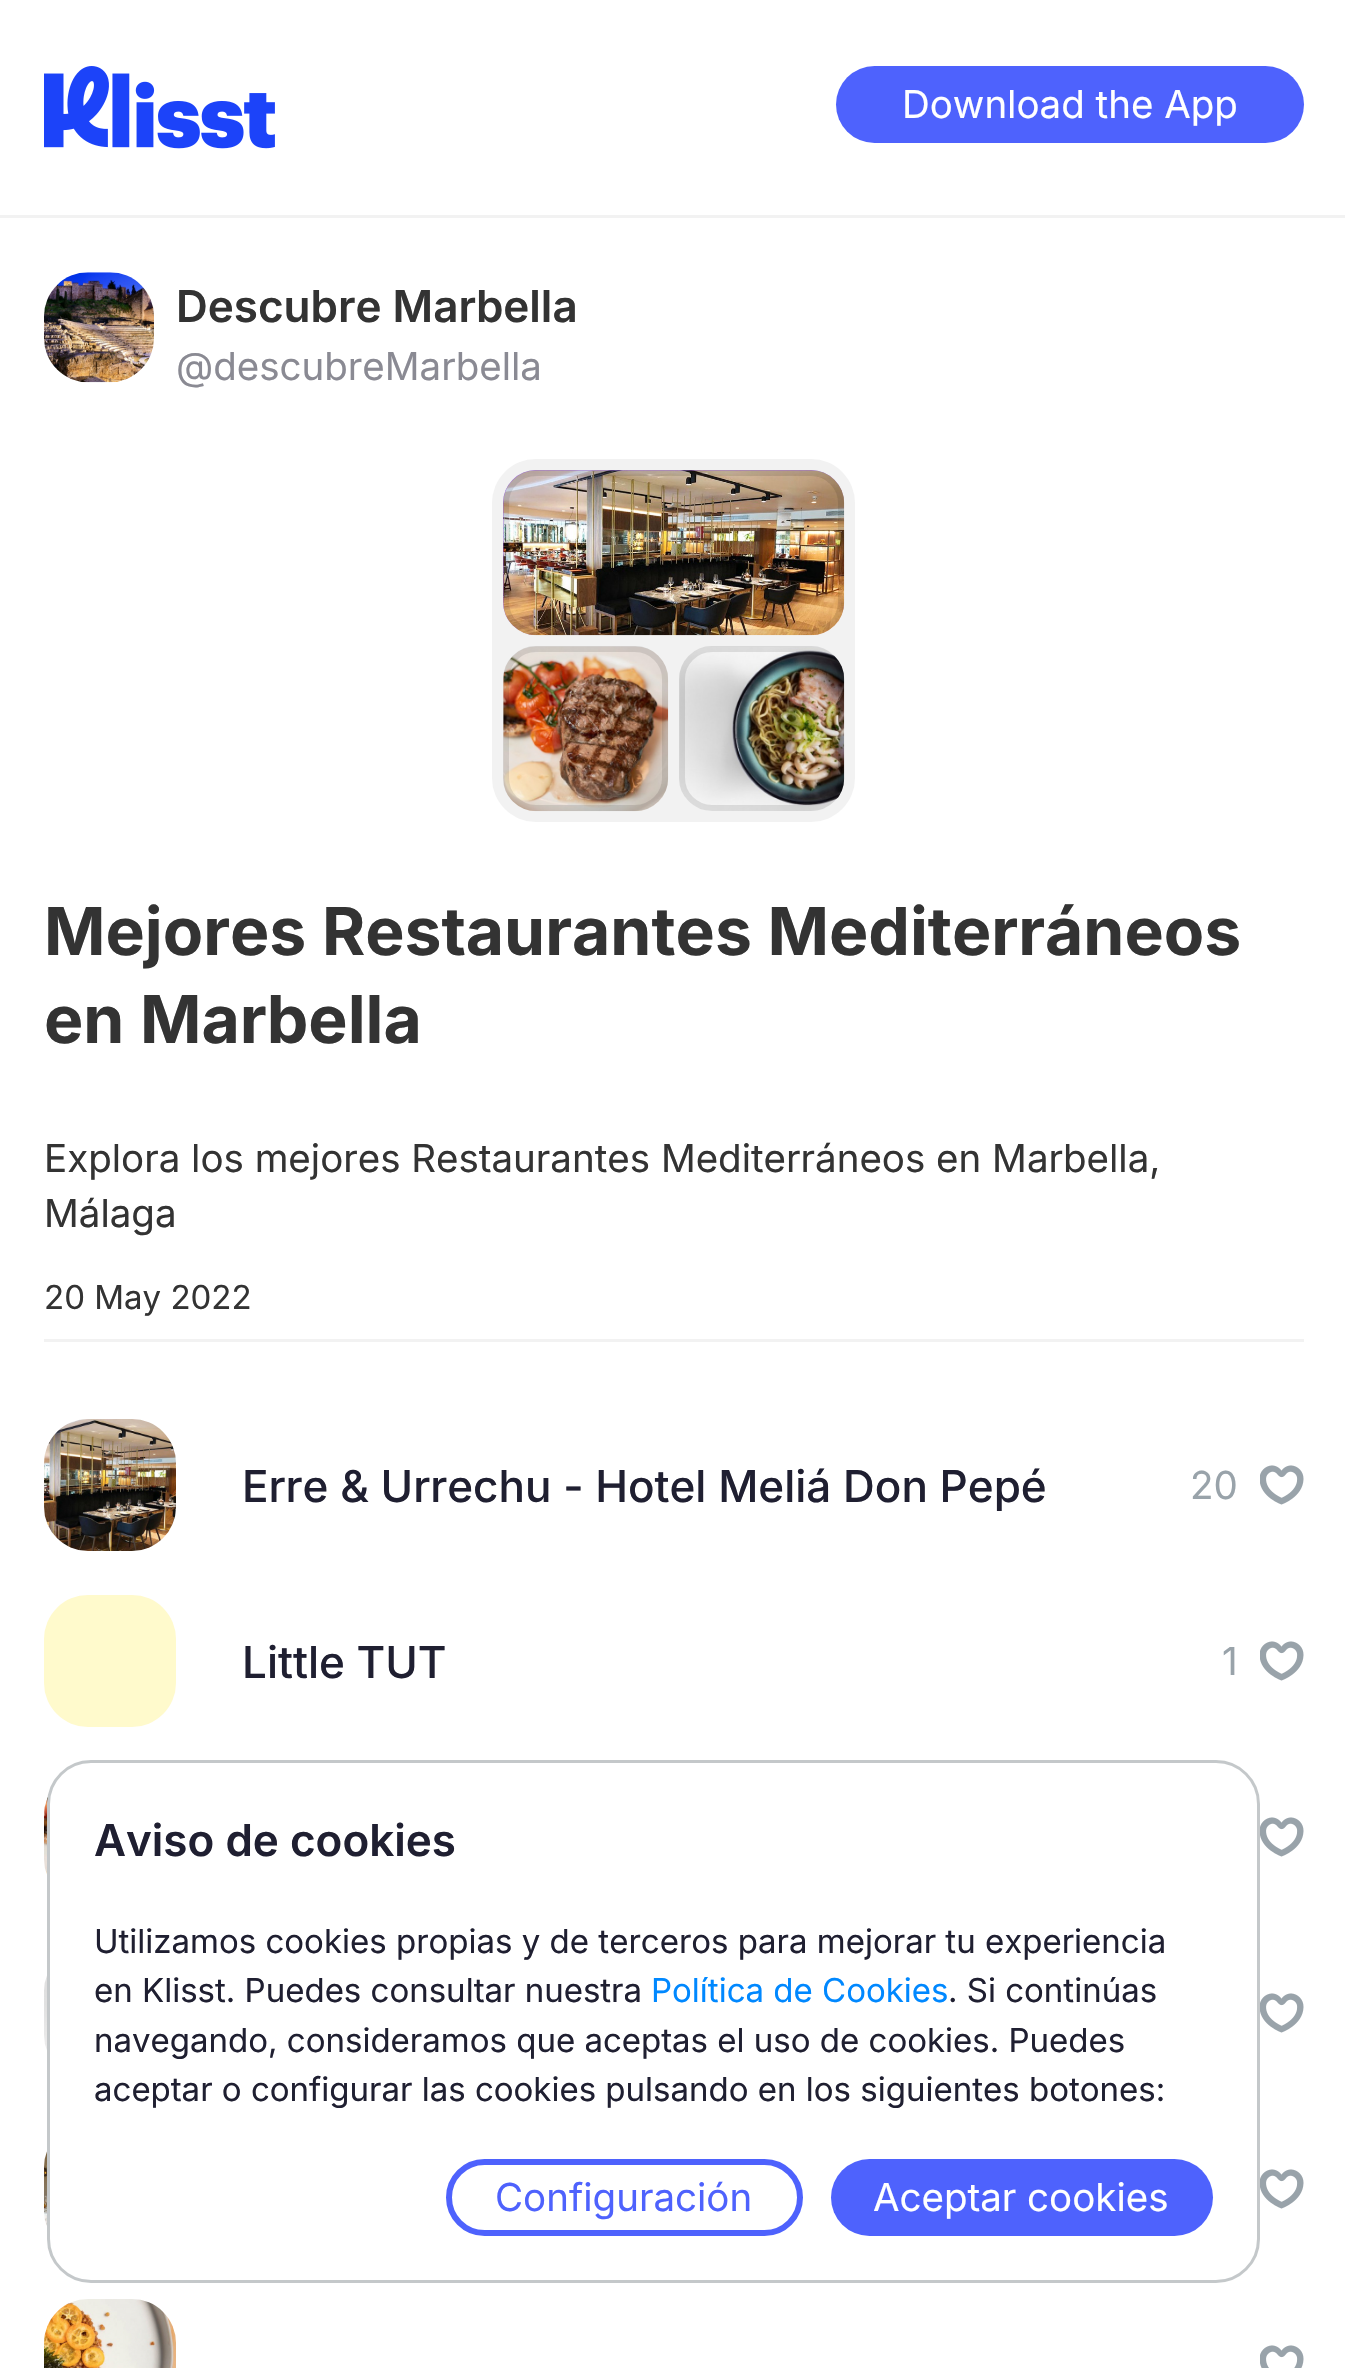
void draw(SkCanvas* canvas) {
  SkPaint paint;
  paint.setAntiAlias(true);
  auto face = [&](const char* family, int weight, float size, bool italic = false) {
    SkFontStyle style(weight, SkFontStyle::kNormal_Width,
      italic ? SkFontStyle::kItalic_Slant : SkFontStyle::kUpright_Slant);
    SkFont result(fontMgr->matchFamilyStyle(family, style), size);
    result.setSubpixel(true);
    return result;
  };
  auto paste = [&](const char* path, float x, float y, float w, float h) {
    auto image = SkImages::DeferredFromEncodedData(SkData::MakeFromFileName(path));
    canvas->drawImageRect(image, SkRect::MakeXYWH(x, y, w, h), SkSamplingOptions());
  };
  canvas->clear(0xffffffff);
  paint.setColor(0xfff2f2f2);
  canvas->drawRect(SkRect::MakeXYWH(0, 215, 1345, 3), paint);
  paste("img/1.png", 44, 66, 231, 83);
  paint.setColor(0xff4e62fd);
  canvas->drawRoundRect(SkRect::MakeXYWH(836, 66, 468, 77), 38.5f, 38.5f, paint);
  paste("img/2.png", 44, 272, 110, 111);
  paint.setColor(0xfff2f2f2);
  canvas->drawRoundRect(SkRect::MakeXYWH(492, 459, 363, 363), 44, 44, paint);
  paint.setColor(0xffac75f1);
  canvas->drawRoundRect(SkRect::MakeXYWH(503, 470, 341, 165), 33, 33, paint);
  paste("img/3.png", 503, 470, 342, 166);
  paint.setStroke(true);
  paint.setStrokeWidth(6);
  paint.setColor(0x1a000000);
  canvas->drawRoundRect(SkRect::MakeXYWH(506, 473, 335, 159), 30, 30, paint);
  paste("img/4.png", 503, 646, 166, 166);
  canvas->drawRoundRect(SkRect::MakeXYWH(506, 649, 159, 159), 30, 30, paint);
  paste("img/5.png", 679, 647, 166, 164);
  canvas->drawRoundRect(SkRect::MakeXYWH(682, 649, 159, 159), 30, 30, paint);
  paint.setStroke(false);
  paint.setColor(0xfff2f2f2);
  canvas->drawRect(SkRect::MakeXYWH(44, 1339, 1260, 3), paint);
  paste("img/6.png", 44, 1419, 132, 132);
  paste("img/7.png", 1260, 1465, 44, 40);
  paint.setColor(0xfffffacc);
  canvas->drawRoundRect(SkRect::MakeXYWH(44, 1595, 132, 132), 44, 44, paint);
  paste("img/7.png", 1260, 1641, 44, 40);
  paste("img/8.png", 44, 1797, 4, 78);
  paste("img/7.png", 1260, 1817, 44, 40);
  paste("img/9.png", 44, 1975, 3, 76);
  paste("img/7.png", 1260, 1993, 44, 40);
  paste("img/10.png", 44, 2151, 3, 76);
  paste("img/7.png", 1260, 2169, 44, 40);
  paste("img/11.png", 44, 2299, 132, 69);
  paste("img/12.png", 1260, 2345, 44, 23);
  paint.setColor(0xffffffff);
  canvas->drawRoundRect(SkRect::MakeXYWH(48.5f, 1761.5f, 1210, 520), 42.5f, 42.5f, paint);
  paint.setStroke(true);
  paint.setStrokeWidth(3);
  paint.setColor(0xffc4c8ca);
  canvas->drawRoundRect(SkRect::MakeXYWH(48.5f, 1761.5f, 1210, 520), 42.5f, 42.5f, paint);
  paint.setStrokeWidth(6);
  paint.setColor(0xff4e62fd);
  canvas->drawRoundRect(SkRect::MakeXYWH(449, 2162, 351, 71), 35.5f, 35.5f, paint);
  paint.setStroke(false);
  canvas->drawRoundRect(SkRect::MakeXYWH(831, 2159, 382, 77), 38.5f, 38.5f, paint);
  auto f0 = face("Inter", 400, 38.5f);
  paint.setColor(0xffffffff);
  canvas->drawString("Download the App", 902, 118, f0, paint);
  auto f1 = face("Inter", 600, 44);
  paint.setColor(0xff333333);
  canvas->drawString("Descubre Marbella", 176, 322, f1, paint);
  paint.setColor(0xff8a8a93);
  canvas->drawString("@descubreMarbella", 176, 380, f0, paint);
  auto f2 = face("Inter", 700, 66);
  paint.setColor(0xff333333);
  canvas->drawString("Mejores Restaurantes Mediterráneos", 44, 955, f2, paint);
  canvas->drawString("en Marbella", 44, 1043, f2, paint);
  canvas->drawString("Explora los mejores Restaurantes Mediterráneos en Marbella,", 44, 1172, f0, paint);
  canvas->drawString("Málaga", 44, 1227, f0, paint);
  auto f3 = face("Inter", 400, 33);
  canvas->drawString("20 May 2022", 44, 1309, f3, paint);
  auto f4 = face("Inter", 500, 44);
  paint.setColor(0xff1f1f31);
  canvas->drawString("Erre & Urrechu - Hotel Meliá Don Pepé", 242, 1502, f4, paint);
  paint.setColor(0xff99a3aa);
  canvas->drawString("20", 1190, 1499, f0, paint);
  paint.setColor(0xff1f1f31);
  canvas->drawString("Little TUT", 242, 1678, f4, paint);
  paint.setColor(0xff99a3aa);
  canvas->drawString("1", 1222, 1675, f0, paint);
  paint.setColor(0xff1f1f31);
  canvas->drawString("Aviso de cookies", 94, 1856, f1, paint);
  canvas->drawString("Utilizamos cookies propias y de terceros para mejorar tu experiencia", 94, 1953, f3, paint);
  canvas->drawString("en Klisst. Puedes consultar nuestra", 94, 2002, f3, paint);
  paint.setColor(0xff0088ff);
  canvas->drawString("Política de Cookies", 651, 2002, f3, paint);
  paint.setColor(0xff1f1f31);
  {
    const struct { const char* s; float x, y; } items[] = {
      {". Si continúas", 948, 2002},
      {"navegando, consideramos que aceptas el uso de cookies. Puedes", 94, 2052},
      {"aceptar o configurar las cookies pulsando en los siguientes botones:", 94, 2101},
    };
    for (auto [s, x, y] : items) {
      canvas->drawString(s, x, y, f3, paint);
    }
  }
  paint.setColor(0xff4e62fd);
  canvas->drawString("Configuración", 495, 2211, f0, paint);
  paint.setColor(0xffffffff);
  canvas->drawString("Aceptar cookies", 873, 2211, f0, paint);
}
